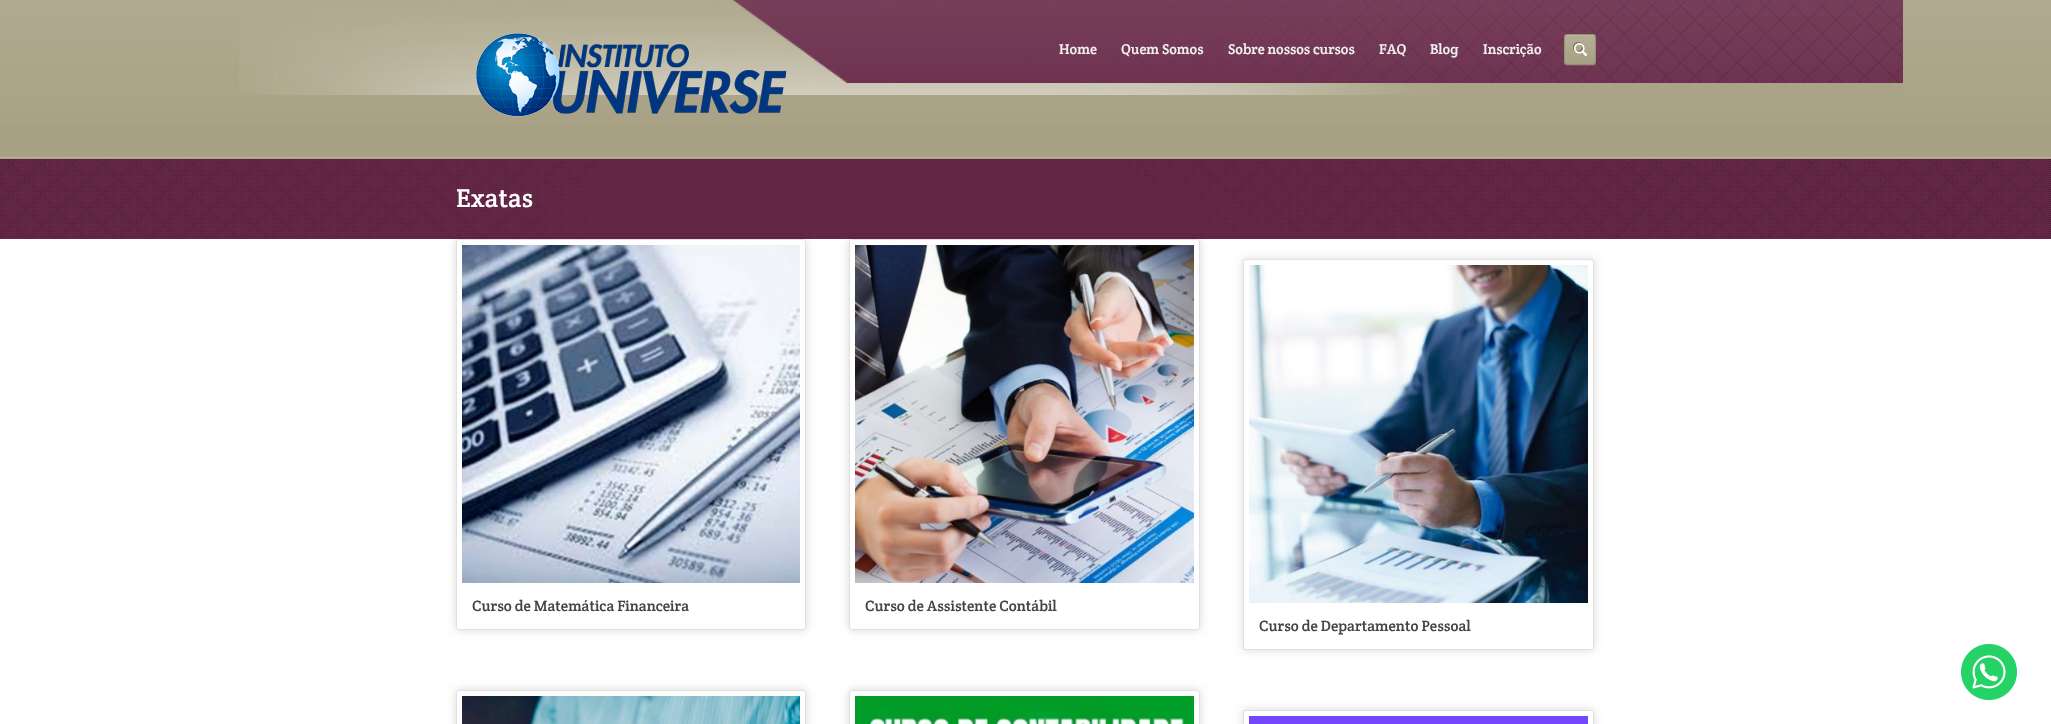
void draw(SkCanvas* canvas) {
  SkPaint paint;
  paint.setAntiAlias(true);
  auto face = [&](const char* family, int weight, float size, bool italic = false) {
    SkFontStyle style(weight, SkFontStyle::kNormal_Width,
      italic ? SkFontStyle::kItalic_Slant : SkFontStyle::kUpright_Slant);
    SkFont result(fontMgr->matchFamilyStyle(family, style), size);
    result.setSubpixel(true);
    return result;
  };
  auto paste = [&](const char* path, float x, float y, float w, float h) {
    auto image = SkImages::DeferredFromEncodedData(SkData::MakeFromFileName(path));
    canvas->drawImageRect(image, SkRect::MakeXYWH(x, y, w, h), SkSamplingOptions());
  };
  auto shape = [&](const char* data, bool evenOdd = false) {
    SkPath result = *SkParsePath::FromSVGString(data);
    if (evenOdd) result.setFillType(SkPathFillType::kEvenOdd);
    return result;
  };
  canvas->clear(0xffffffff);
  paint.setColor(0xffa7a083);
  canvas->drawRect(SkRect::MakeXYWH(0, 0, 2051, 157), paint);
  paste("img/1.png", 239, 0, 1664, 95);
  {
    const SkColor colors[] = {0x1affffff, 0x00ffffff};
    const float stops[] = {0, 1};
    const SkPoint ends[] = {{1026, 1}, {1026, 157}};
    paint.setShader(SkGradientShader::MakeLinear(ends, colors, stops, 2, SkTileMode::kClamp));
    paint.setAlpha(255);
  }
  canvas->drawRect(SkRect::MakeXYWH(0, 1, 2051, 122), paint);
  paint.setShader(nullptr);
  paint.setColor(0x1affffff);
  canvas->drawRect(SkRect::MakeXYWH(0, 0, 2051, 1), paint);
  paint.setColor(0xffb8b39a);
  canvas->drawRect(SkRect::MakeXYWH(0, 157, 2051, 1), paint);
  paste("img/2.png", 476, 33, 311, 84);
  paint.setColor(0x1affffff);
  canvas->drawPath(shape("M1564 62C1564 67 1567.5 66 1571.5 66H1588.5C1592.5 66 1596 67 1596 62C1596 63.5 1594.5 65 1593 65H1567C1565.5 65 1564 63.5 1564 62Z"), paint);
  paint.setColor(0xffa7a083);
  canvas->drawRoundRect(SkRect::MakeXYWH(1564, 34, 32, 31), 3, 3, paint);
  paste("img/3.png", 1573, 42, 14, 14);
  paint.setStroke(true);
  paint.setStrokeWidth(1);
  paint.setColor(0x1a000000);
  canvas->drawRoundRect(SkRect::MakeXYWH(1564.5f, 34.5f, 31, 30), 2.5f, 2.5f, paint);
  paint.setStroke(false);
  {
    const SkColor colors[] = {0x26ffffff, 0x00ffffff};
    const float stops[] = {0, 1};
    const SkPoint ends[] = {{1580, 35}, {1580, 64}};
    paint.setShader(SkGradientShader::MakeLinear(ends, colors, stops, 2, SkTileMode::kClamp));
    paint.setAlpha(255);
  }
  canvas->drawRoundRect(SkRect::MakeXYWH(1565, 35, 30, 29), 3, 3, paint);
  paint.setShader(nullptr);
  paint.setColor(0xffbcb6a0);
  canvas->drawPath(shape("M1568 36H1592C1594 36 1595 37 1595 39C1595 34.5 1592 35 1588 35H1572C1568 35 1565 34.5 1565 39C1565 37 1566 36 1568 36Z"), paint);
  paint.setColor(0xffa7a083);
  canvas->drawRect(SkRect::MakeXYWH(0, 158, 2051, 1), paint);
  paste("img/4.png", 0, 159, 2051, 80);
  paste("img/5.png", 0, 159, 2051, 79);
  paint.setColor(0x26000000);
  paint.setMaskFilter(SkMaskFilter::MakeBlur(kNormal_SkBlurStyle, 4));
  canvas->drawRoundRect(SkRect::MakeXYWH(456, 239, 350, 391), 3, 3, paint);
  paint.setMaskFilter(nullptr);
  paint.setColor(0xffffffff);
  canvas->drawRoundRect(SkRect::MakeXYWH(456.5f, 239.5f, 349, 390), 2.5f, 2.5f, paint);
  paint.setStroke(true);
  paint.setColor(0xffe1e1e1);
  canvas->drawRoundRect(SkRect::MakeXYWH(456.5f, 239.5f, 349, 390), 2.5f, 2.5f, paint);
  paste("img/6.png", 462, 245, 338, 338);
  paint.setStroke(false);
  paint.setColor(0x26000000);
  paint.setMaskFilter(SkMaskFilter::MakeBlur(kNormal_SkBlurStyle, 4));
  canvas->drawRoundRect(SkRect::MakeXYWH(849, 239, 351, 391), 3, 3, paint);
  paint.setMaskFilter(nullptr);
  paint.setColor(0xffffffff);
  canvas->drawRoundRect(SkRect::MakeXYWH(849.5f, 239.5f, 350, 390), 2.5f, 2.5f, paint);
  paint.setStroke(true);
  paint.setColor(0xffe1e1e1);
  canvas->drawRoundRect(SkRect::MakeXYWH(849.5f, 239.5f, 350, 390), 2.5f, 2.5f, paint);
  paste("img/7.png", 855, 245, 339, 338);
  paint.setStroke(false);
  paint.setColor(0x26000000);
  paint.setMaskFilter(SkMaskFilter::MakeBlur(kNormal_SkBlurStyle, 4));
  canvas->drawRoundRect(SkRect::MakeXYWH(1243, 259, 351, 391), 3, 3, paint);
  paint.setMaskFilter(nullptr);
  paint.setColor(0xffffffff);
  canvas->drawRoundRect(SkRect::MakeXYWH(1243.5f, 259.5f, 350, 390), 2.5f, 2.5f, paint);
  paint.setStroke(true);
  paint.setColor(0xffe1e1e1);
  canvas->drawRoundRect(SkRect::MakeXYWH(1243.5f, 259.5f, 350, 390), 2.5f, 2.5f, paint);
  paste("img/8.png", 1249, 265, 339, 338);
  paint.setStroke(false);
  paint.setColor(0x26000000);
  paint.setMaskFilter(SkMaskFilter::MakeBlur(kNormal_SkBlurStyle, 4));
  canvas->drawRoundRect(SkRect::MakeXYWH(456, 690, 350, 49), 3, 3, paint);
  paint.setMaskFilter(nullptr);
  paint.setColor(0xffffffff);
  canvas->drawRoundRect(SkRect::MakeXYWH(456.5f, 690.5f, 349, 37), 2.5f, 2.5f, paint);
  paint.setStroke(true);
  paint.setColor(0xffe1e1e1);
  canvas->drawRoundRect(SkRect::MakeXYWH(456.5f, 690.5f, 349, 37), 2.5f, 2.5f, paint);
  paste("img/9.png", 462, 696, 338, 28);
  paint.setStroke(false);
  paint.setColor(0x26000000);
  paint.setMaskFilter(SkMaskFilter::MakeBlur(kNormal_SkBlurStyle, 4));
  canvas->drawRoundRect(SkRect::MakeXYWH(849, 690, 351, 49), 3, 3, paint);
  paint.setMaskFilter(nullptr);
  paint.setColor(0xffffffff);
  canvas->drawRoundRect(SkRect::MakeXYWH(849.5f, 690.5f, 350, 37), 2.5f, 2.5f, paint);
  paint.setStroke(true);
  paint.setColor(0xffe1e1e1);
  canvas->drawRoundRect(SkRect::MakeXYWH(849.5f, 690.5f, 350, 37), 2.5f, 2.5f, paint);
  paste("img/10.png", 855, 696, 339, 28);
  paint.setStroke(false);
  paint.setColor(0x26000000);
  paint.setMaskFilter(SkMaskFilter::MakeBlur(kNormal_SkBlurStyle, 4));
  canvas->drawRoundRect(SkRect::MakeXYWH(1243, 710, 351, 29), 3, 3, paint);
  paint.setMaskFilter(nullptr);
  paint.setColor(0xffffffff);
  canvas->drawRoundRect(SkRect::MakeXYWH(1243.5f, 710.5f, 350, 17), 2.5f, 2.5f, paint);
  paint.setStroke(true);
  paint.setColor(0xffe1e1e1);
  canvas->drawRoundRect(SkRect::MakeXYWH(1243.5f, 710.5f, 350, 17), 2.5f, 2.5f, paint);
  paint.setStroke(false);
  paint.setColor(0xff7446fe);
  canvas->drawRect(SkRect::MakeXYWH(1249, 716, 339, 8), paint);
  paste("img/11.png", 1961, 644, 56, 56);
  auto f0 = face("Crete Round", 400, 14.25f);
  paint.setColor(0xfff0f0f0);
  {
    const struct { const char* s; float x, y; } items[] = {
      {"Home", 1059, 54},
      {"Quem Somos", 1121, 54},
      {"Sobre nossos cursos", 1228, 54},
      {"FAQ", 1379, 54},
      {"Blog", 1430, 54},
      {"Inscrição", 1483, 54},
    };
    for (auto [s, x, y] : items) {
      canvas->drawString(s, x, y, f0, paint);
    }
  }
  auto f1 = face("Crete Round", 400, 26);
  paint.setColor(0xffffffff);
  canvas->drawString("Exatas", 456, 207, f1, paint);
  auto f2 = face("Crete Round", 400, 15);
  paint.setColor(0xff444444);
  {
    const struct { const char* s; float x, y; } items[] = {
      {"Curso de Matemática Financeira", 472, 611},
      {"Curso de Assistente Contábil", 865, 611},
      {"Curso de Departamento Pessoal", 1259, 631},
    };
    for (auto [s, x, y] : items) {
      canvas->drawString(s, x, y, f2, paint);
    }
  }
}
